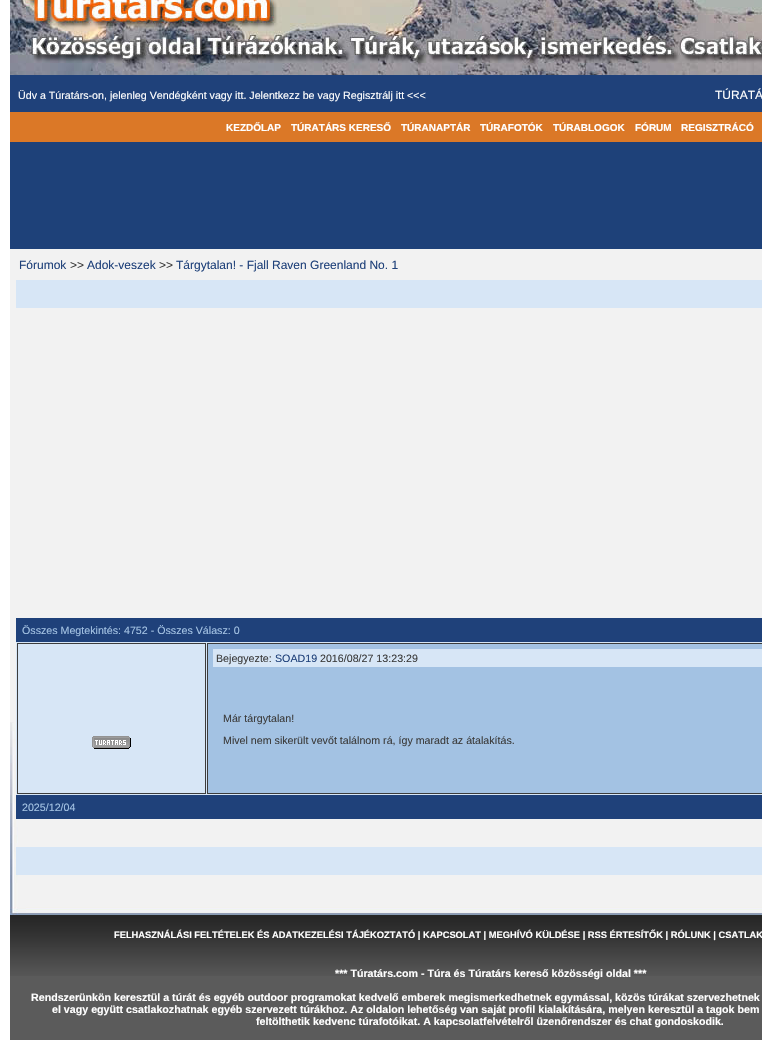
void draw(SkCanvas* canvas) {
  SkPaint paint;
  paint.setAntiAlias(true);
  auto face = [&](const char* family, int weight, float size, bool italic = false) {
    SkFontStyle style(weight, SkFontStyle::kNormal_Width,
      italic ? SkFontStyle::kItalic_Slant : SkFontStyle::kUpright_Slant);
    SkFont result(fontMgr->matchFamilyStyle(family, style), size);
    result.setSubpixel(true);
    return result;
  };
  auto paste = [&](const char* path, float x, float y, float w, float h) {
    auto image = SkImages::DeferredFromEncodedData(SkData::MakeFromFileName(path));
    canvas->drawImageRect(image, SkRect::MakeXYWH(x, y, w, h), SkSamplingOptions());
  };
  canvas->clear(0xffffffff);
  paint.setColor(0xff1f417a);
  canvas->drawRect(SkRect::MakeXYWH(10, 75, 752, 37), paint);
  paste("img/1.png", 10, 0, 752, 75);
  {
    const struct { float x, y, w, h; SkColor color; } items[] = {
      {10, 112, 752, 30, 0xffdb7827},
      {10, 142, 752, 107, 0xff1e4179},
      {10, 249, 752, 473, 0xfff2f2f2},
    };
    for (auto [x, y, w, h, color] : items) {
      paint.setColor(color);
      canvas->drawRect(SkRect::MakeXYWH(x, y, w, h), paint);
    }
  }
  paste("img/2.png", 10, 722, 752, 193);
  {
    const struct { float x, y, w, h; SkColor color; } items[] = {
      {16, 280, 746, 28, 0xffd7e6f6},
      {16, 618, 746, 24, 0xff1f417a},
      {16, 642, 746, 153, 0xffd7e6f6},
    };
    for (auto [x, y, w, h, color] : items) {
      paint.setColor(color);
      canvas->drawRect(SkRect::MakeXYWH(x, y, w, h), paint);
    }
  }
  paint.setStroke(true);
  paint.setStrokeWidth(1);
  paint.setColor(0xff3c3c3c);
  canvas->drawRect(SkRect::MakeXYWH(17.5f, 643.5f, 188, 150), paint);
  paste("img/3.png", 92, 736, 39, 13);
  paint.setStroke(false);
  paint.setColor(0xffa3c2e3);
  canvas->drawRect(SkRect::MakeXYWH(207.5f, 643.5f, 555, 150), paint);
  paint.setStroke(true);
  paint.setColor(0xff3c3c3c);
  canvas->drawRect(SkRect::MakeXYWH(207.5f, 643.5f, 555, 150), paint);
  paint.setStroke(false);
  {
    const struct { float x, y, w, h; SkColor color; } items[] = {
      {213, 649, 549, 18, 0xffd7e6f6},
      {16, 795, 746, 24, 0xff1f417a},
      {16, 847, 746, 28, 0xffd7e6f6},
      {10, 976, 752, 64, 0xff5b5b5b},
    };
    for (auto [x, y, w, h, color] : items) {
      paint.setColor(color);
      canvas->drawRect(SkRect::MakeXYWH(x, y, w, h), paint);
    }
  }
  paste("img/4.png", 10, 915, 752, 61);
  auto f0 = face("Liberation Sans", 400, 10.67f);
  paint.setColor(0xffffffff);
  canvas->drawString("Üdv a Túratárs-on, jelenleg Vendégként vagy itt. Jelentkezz be vagy Regisztrálj itt <<<", 18, 99, f0, paint);
  auto f1 = face("Liberation Sans", 400, 12);
  canvas->drawString("TÚRATÁ", 715, 99, f1, paint);
  auto f2 = face("Liberation Sans", 700, 10);
  {
    const struct { const char* s; float x, y; } items[] = {
      {"KEZDŐLAP", 226, 131},
      {"TÚRATÁRS KERESŐ", 291, 131},
      {"TÚRANAPTÁR", 401, 131},
      {"TÚRAFOTÓK", 480, 131},
      {"TÚRABLOGOK", 553, 131},
      {"FÓRUM", 635, 131},
      {"REGISZTRÁCÓ", 681, 131},
    };
    for (auto [s, x, y] : items) {
      canvas->drawString(s, x, y, f2, paint);
    }
  }
  paint.setColor(0xff1f417a);
  canvas->drawString("Fórumok", 19, 269, f1, paint);
  paint.setColor(0xff3c3c3c);
  canvas->drawString(">>", 70, 269, f1, paint);
  paint.setColor(0xff1f417a);
  canvas->drawString("Adok-veszek", 87, 269, f1, paint);
  paint.setColor(0xff3c3c3c);
  canvas->drawString(">>", 159, 269, f1, paint);
  paint.setColor(0xff1f417a);
  canvas->drawString("Tárgytalan! - Fjall Raven Greenland No. 1", 176, 269, f1, paint);
  paint.setColor(0xffa3c2e3);
  canvas->drawString("Összes Megtekintés: 4752 - Összes Válasz: 0", 22, 634, f0, paint);
  paint.setColor(0xff3c3c3c);
  canvas->drawString("Bejegyezte:", 216, 662, f0, paint);
  paint.setColor(0xff1f417a);
  canvas->drawString("SOAD19", 275, 662, f0, paint);
  paint.setColor(0xff3c3c3c);
  {
    const struct { const char* s; float x, y; } items[] = {
      {"2016/08/27 13:23:29", 320, 662},
      {"Már tárgytalan!", 223, 722},
      {"Mivel nem sikerült vevőt találnom rá, így maradt az átalakítás.", 223, 744},
    };
    for (auto [s, x, y] : items) {
      canvas->drawString(s, x, y, f0, paint);
    }
  }
  paint.setColor(0xffa3c2e3);
  canvas->drawString("2025/12/04", 22, 811, f0, paint);
  auto f3 = face("Liberation Sans", 700, 9.33f);
  paint.setColor(0xffffffff);
  canvas->drawString("FELHASZNÁLÁSI FELTÉTELEK ÉS ADATKEZELÉSI TÁJÉKOZTATÓ | KAPCSOLAT | MEGHÍVÓ KÜLDÉSE | RSS ÉRTESÍTŐK | RÓLUNK | CSATLAK", 114, 938, f3, paint);
  auto f4 = face("Liberation Sans", 700, 10.67f);
  {
    const struct { const char* s; float x, y; } items[] = {
      {"*** Túratárs.com - Túra és Túratárs kereső közösségi oldal ***", 335, 977},
      {"Rendszerünkön keresztül a túrát és egyéb outdoor programokat kedvelő emberek megismerkedhetnek egymással, közös túrákat szervezhetnek", 31, 1001},
      {"el vagy együtt csatlakozhatnak egyéb szervezett túrákhoz. Az oldalon lehetőség van saját profil kialakítására, melyen keresztül a tagok bem", 52, 1013},
      {"feltölthetik kedvenc túrafotóikat. A kapcsolatfelvételről üzenőrendszer és chat gondoskodik.", 256, 1025},
    };
    for (auto [s, x, y] : items) {
      canvas->drawString(s, x, y, f4, paint);
    }
  }
}
